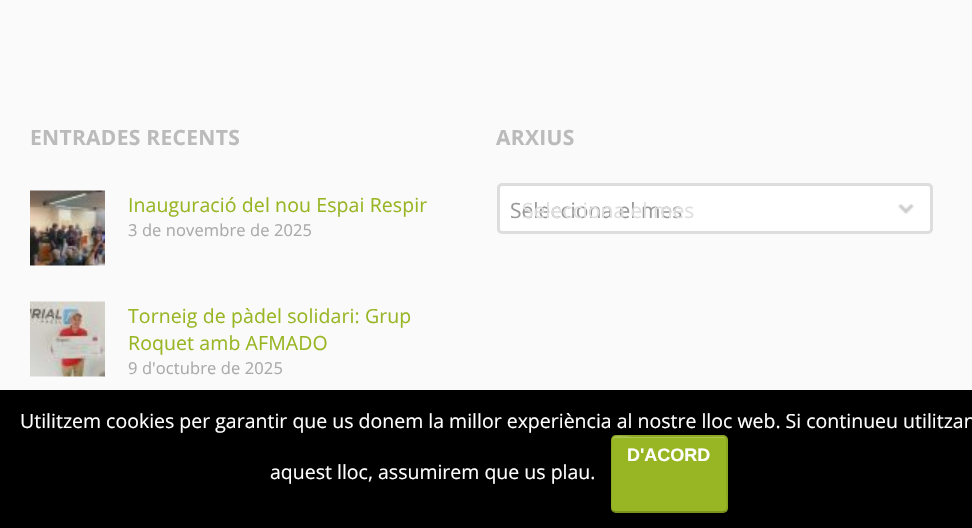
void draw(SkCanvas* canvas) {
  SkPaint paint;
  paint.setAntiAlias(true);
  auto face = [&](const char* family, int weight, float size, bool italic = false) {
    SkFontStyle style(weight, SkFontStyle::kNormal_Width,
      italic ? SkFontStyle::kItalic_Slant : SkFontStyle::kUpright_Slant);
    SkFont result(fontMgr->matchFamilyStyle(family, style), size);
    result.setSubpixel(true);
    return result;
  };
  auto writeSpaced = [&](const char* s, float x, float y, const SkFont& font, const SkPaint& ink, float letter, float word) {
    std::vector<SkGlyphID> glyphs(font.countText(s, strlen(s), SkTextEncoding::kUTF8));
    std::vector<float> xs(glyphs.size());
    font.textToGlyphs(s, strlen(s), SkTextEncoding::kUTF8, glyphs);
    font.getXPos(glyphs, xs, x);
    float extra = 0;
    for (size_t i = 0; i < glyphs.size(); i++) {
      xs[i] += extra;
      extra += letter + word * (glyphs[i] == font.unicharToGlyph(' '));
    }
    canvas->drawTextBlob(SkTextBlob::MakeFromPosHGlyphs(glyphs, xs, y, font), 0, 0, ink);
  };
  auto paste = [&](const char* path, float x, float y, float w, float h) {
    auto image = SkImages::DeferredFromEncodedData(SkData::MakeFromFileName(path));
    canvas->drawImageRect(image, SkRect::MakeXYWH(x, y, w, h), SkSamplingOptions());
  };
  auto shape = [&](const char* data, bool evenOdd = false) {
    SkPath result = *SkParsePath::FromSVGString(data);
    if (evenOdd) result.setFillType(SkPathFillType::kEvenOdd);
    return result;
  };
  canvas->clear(0xfffafafa);
  paste("img/1.png", 30, 190, 75, 76);
  paste("img/2.png", 30, 301, 75, 76);
  paint.setColor(0xffffffff);
  canvas->drawRoundRect(SkRect::MakeXYWH(498.5f, 184.5f, 433, 48), 3.5f, 3.5f, paint);
  paint.setStroke(true);
  paint.setStrokeWidth(3);
  paint.setColor(0xffdddddd);
  canvas->drawRoundRect(SkRect::MakeXYWH(498.5f, 184.5f, 433, 48), 3.5f, 3.5f, paint);
  paste("img/3.png", 898, 204, 16, 10);
  paint.setStroke(false);
  paint.setColor(0xff000000);
  canvas->drawRect(SkRect::MakeXYWH(0, 390, 972, 138), paint);
  paint.setColor(0xff98b624);
  canvas->drawRoundRect(SkRect::MakeXYWH(611, 435, 117, 78), 5, 5, paint);
  paint.setColor(0xffadc550);
  canvas->drawPath(shape("M615 438H723C725 438 726 439 726 441C726 439 725 437 723 437H633C631 437 612 432 612 441C612 439 613 438 615 438Z"), paint);
  paint.setStroke(true);
  paint.setStrokeWidth(1.5f);
  paint.setColor(0x40000000);
  canvas->drawPath(shape("M725.5 511L723.5 512H633H615L612.5 511"), paint);
  paint.setColor(0x1a000000);
  canvas->drawPath(shape("M612.5 511C609.5 508.5 611 498 611 497V451C611 431 610 436 633 436H705C728 436 727 431 727 451V497C727 498 728.5 508.5 725.5 511"), paint);
  auto f0 = face("Open Sans", 700, 21);
  paint.setStroke(false);
  paint.setColor(0xffbbbbbb);
  writeSpaced("ENTRADES RECENTS", 30, 145, f0, paint, 0.3f, 0);
  auto f1 = face("Open Sans", 400, 19.5f);
  paint.setColor(0xff98b624);
  writeSpaced("Inauguració del nou Espai Respir", 128, 212, f1, paint, 0.1f, 0);
  auto f2 = face("Open Sans", 400, 16.5f);
  paint.setColor(0xffaaaaaa);
  writeSpaced("3 de novembre de 2025", 128, 236, f2, paint, 0.1f, 0);
  paint.setColor(0xff98b624);
  writeSpaced("Torneig de pàdel solidari: Grup", 128, 323, f1, paint, 0.1f, 0);
  writeSpaced("Roquet amb AFMADO", 128, 350, f1, paint, 0.1f, 0);
  paint.setColor(0xffaaaaaa);
  writeSpaced("9 d'octubre de 2025", 128, 374, f2, paint, 0.1f, 0);
  paint.setColor(0xffbbbbbb);
  writeSpaced("ARXIUS", 496, 145, f0, paint, 0.3f, 0);
  auto f3 = face("Open Sans", 400, 21);
  paint.setColor(0xff999999);
  canvas->drawString("Selecciona el mes", 510, 218, f3, paint);
  paint.setColor(0xffdfdfdf);
  canvas->drawString("Selecciona el mes", 522, 218, f3, paint);
  paint.setColor(0xffffffff);
  canvas->drawString("Utilitzem cookies per garantir que us donem la millor experiència al nostre lloc web. Si continueu utilitzan", 20, 428, f1, paint);
  auto f4 = face("Liberation Sans", 700, 18);
  canvas->drawString("D'ACORD", 627, 461, f4, paint);
  canvas->drawString("aquest lloc, assumirem que us plau.", 270, 479, f1, paint);
}
